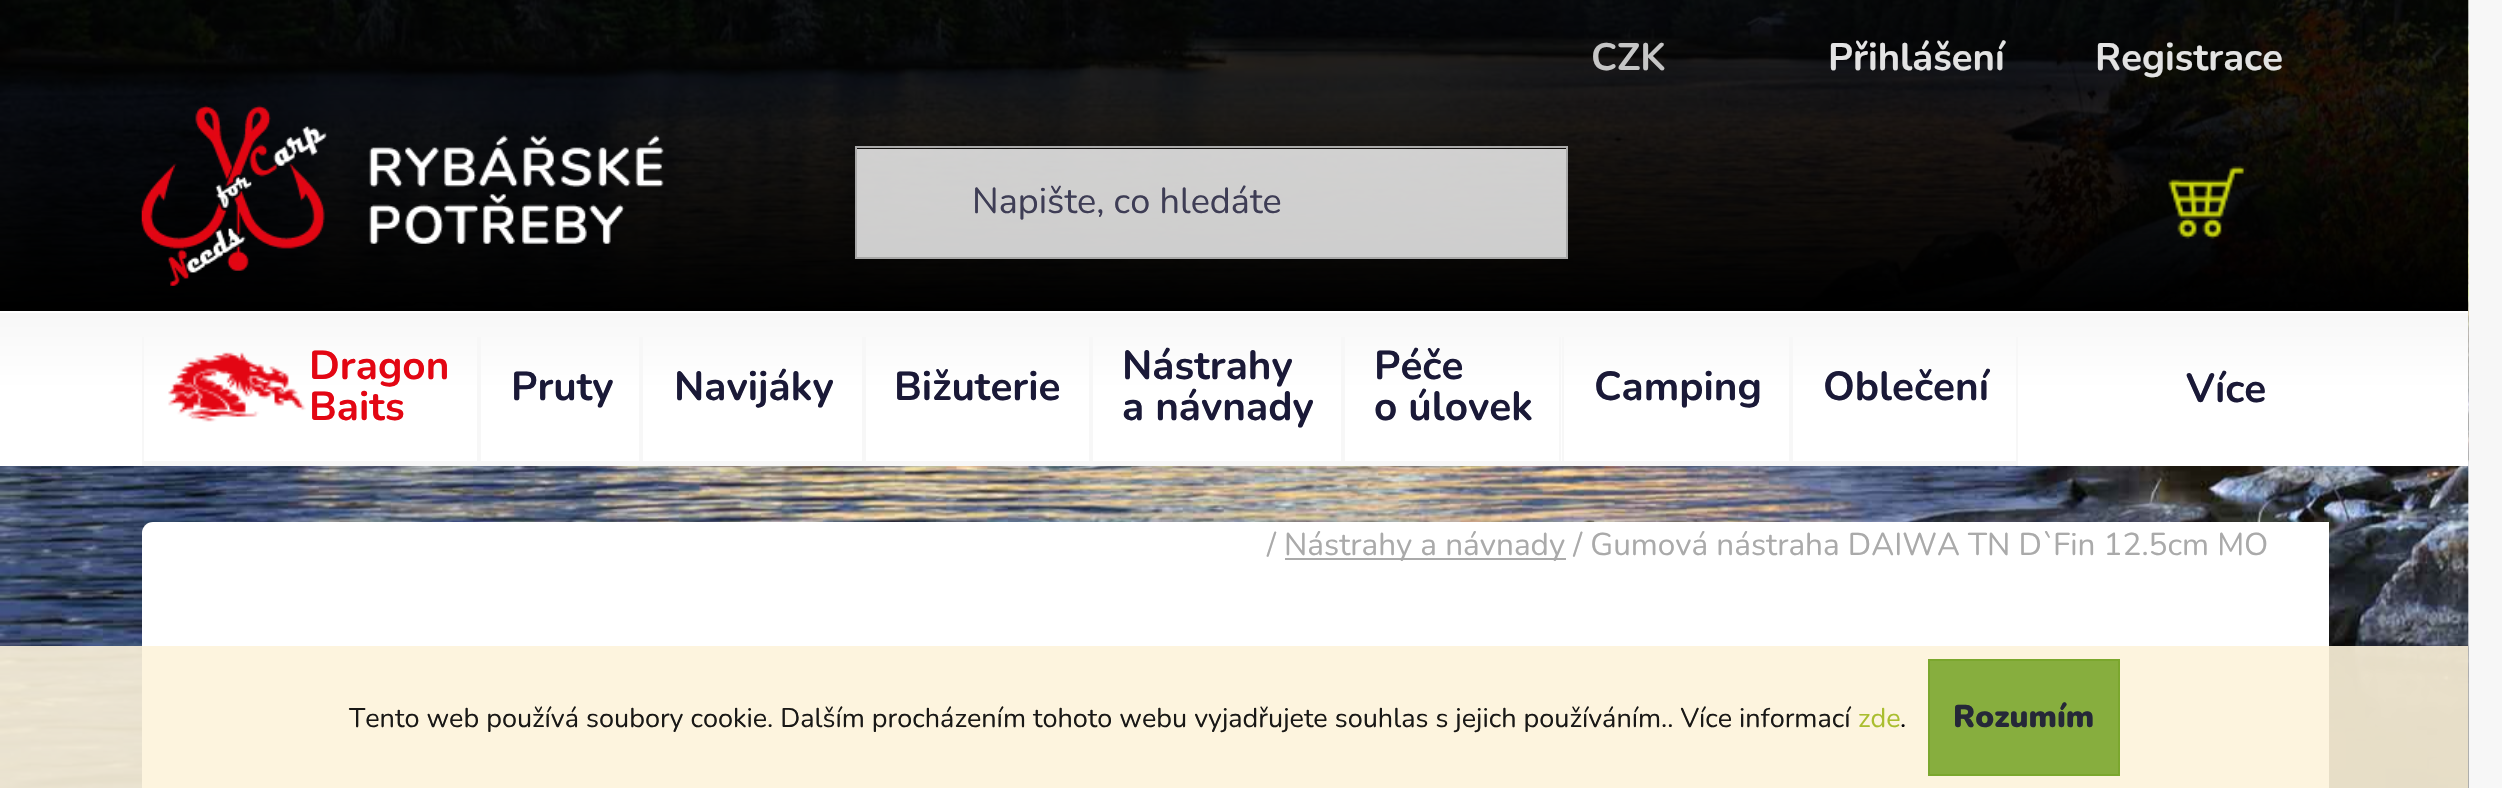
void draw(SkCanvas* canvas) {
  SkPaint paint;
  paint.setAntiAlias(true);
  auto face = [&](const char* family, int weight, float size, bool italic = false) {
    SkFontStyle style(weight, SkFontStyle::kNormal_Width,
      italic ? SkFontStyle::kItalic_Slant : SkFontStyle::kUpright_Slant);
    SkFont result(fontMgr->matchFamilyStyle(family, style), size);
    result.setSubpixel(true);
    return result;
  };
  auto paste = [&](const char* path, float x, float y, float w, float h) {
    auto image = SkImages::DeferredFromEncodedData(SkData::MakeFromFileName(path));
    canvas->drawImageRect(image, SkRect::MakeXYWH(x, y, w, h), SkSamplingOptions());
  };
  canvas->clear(0xfff7f7f7);
  paste("img/1.png", 0, 0, 2469, 788);
  paint.setColor(0xd9000000);
  canvas->drawRect(SkRect::MakeXYWH(0, 0, 2468, 95), paint);
  paste("img/2.png", 141, 105, 523, 181);
  paint.setStroke(true);
  paint.setStrokeWidth(2);
  paint.setColor(0xcccfcfcf);
  canvas->drawRect(SkRect::MakeXYWH(856, 147, 711, 111), paint);
  paint.setStroke(false);
  paint.setColor(0xccffffff);
  canvas->drawRect(SkRect::MakeXYWH(857, 149, 709, 108), paint);
  paste("img/3.png", 2168, 166, 76, 73);
  {
    const SkColor colors[] = {0xfff7f7f7, 0xffffffff, 0xffffffff};
    const float stops[] = {0, 0.5f, 1};
    const SkPoint ends[] = {{1234, 313}, {1234, 466}};
    paint.setShader(SkGradientShader::MakeLinear(ends, colors, stops, 3, SkTileMode::kClamp));
    paint.setAlpha(255);
  }
  canvas->drawRect(SkRect::MakeXYWH(0, 313, 2468, 153), paint);
  paint.setShader(nullptr);
  {
    const struct { float x, y, w, h; SkColor color; } items[] = {
      {0, 311, 2468, 2, 0xffffffff},
      {477, 337, 2, 129, 0xfff7f7f7},
      {142, 461, 337, 5, 0xfff7f7f7},
      {142, 337, 2, 129, 0xfff7f7f7},
    };
    for (auto [x, y, w, h, color] : items) {
      paint.setColor(color);
      canvas->drawRect(SkRect::MakeXYWH(x, y, w, h), paint);
    }
  }
  paste("img/4.png", 168, 352, 138, 70);
  {
    const struct { float x, y, w, h; SkColor color; } items[] = {
      {639, 337, 2, 129, 0xfff7f7f7},
      {479, 461, 162, 5, 0xfff7f7f7},
      {479, 337, 2, 129, 0xfff7f7f7},
      {862, 337, 2, 129, 0xfff7f7f7},
      {641, 461, 223, 5, 0xfff7f7f7},
      {641, 337, 2, 129, 0xfff7f7f7},
      {1089, 337, 2, 129, 0xfff7f7f7},
      {864, 461, 227, 5, 0xfff7f7f7},
      {864, 337, 2, 129, 0xfff7f7f7},
      {1341, 337, 2, 129, 0xfff7f7f7},
      {1091, 461, 252, 5, 0xfff7f7f7},
      {1091, 337, 2, 129, 0xfff7f7f7},
      {1559, 337, 2, 129, 0xfff7f7f7},
      {1343, 461, 219, 5, 0xfff7f7f7},
      {1343, 337, 2, 129, 0xfff7f7f7},
      {1789, 337, 2, 129, 0xfff7f7f7},
      {1562, 461, 229, 5, 0xfff7f7f7},
      {1562, 337, 2, 129, 0xfff7f7f7},
      {2016, 337, 2, 129, 0xfff7f7f7},
      {1791, 461, 227, 5, 0xfff7f7f7},
      {1791, 337, 2, 129, 0xfff7f7f7},
    };
    for (auto [x, y, w, h, color] : items) {
      paint.setColor(color);
      canvas->drawRect(SkRect::MakeXYWH(x, y, w, h), paint);
    }
  }
  paint.setColor(0xffffffff);
  canvas->drawRoundRect(SkRect::MakeXYWH(142, 522, 2187, 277), 11, 11, paint);
  {
    const struct { float x, y, w, h; SkColor color; } items[] = {
      {2318, 522, 11, 11, 0xffffffff},
      {1285, 558, 281, 2, 0xffaaaaaa},
      {0, 646, 2468, 142, 0xe6fdf3da},
    };
    for (auto [x, y, w, h, color] : items) {
      paint.setColor(color);
      canvas->drawRect(SkRect::MakeXYWH(x, y, w, h), paint);
    }
  }
  paint.setColor(0xe67aa62c);
  canvas->drawRect(SkRect::MakeXYWH(1929, 660, 190, 115), paint);
  paint.setStroke(true);
  paint.setColor(0xff7ba72e);
  canvas->drawRect(SkRect::MakeXYWH(1929, 660, 190, 115), paint);
  auto f0 = face("Nunito", 700, 38.25f);
  paint.setStroke(false);
  paint.setColor(0xffc6c6c6);
  canvas->drawString("CZK", 1591, 70, f0, paint);
  paint.setColor(0xffe3e3e3);
  canvas->drawString("Přihlášení", 1828, 70, f0, paint);
  canvas->drawString("Registrace", 2095, 70, f0, paint);
  auto f1 = face("Nunito", 400, 36);
  paint.setColor(0xff3e3d55);
  canvas->drawString("Napište, co hledáte", 972, 213, f1, paint);
  auto f2 = face("Nunito", 700, 40.5f);
  paint.setColor(0xffe30613);
  canvas->drawString("Dragon", 309, 379, f2, paint);
  canvas->drawString("Baits", 309, 420, f2, paint);
  paint.setColor(0xff1a1937);
  {
    const struct { const char* s; float x, y; } items[] = {
      {"Pruty", 511, 400},
      {"Navijáky", 674, 400},
      {"Bižuterie", 894, 400},
      {"Nástrahy", 1122, 379},
      {"a návnady", 1122, 420},
      {"Péče", 1374, 379},
      {"o úlovek", 1374, 420},
      {"Camping", 1594, 400},
      {"Oblečení", 1823, 400},
      {"Více", 2186, 402},
    };
    for (auto [s, x, y] : items) {
      canvas->drawString(s, x, y, f2, paint);
    }
  }
  auto f3 = face("Nunito", 400, 31.5f);
  paint.setColor(0xffaaaaaa);
  canvas->drawString("/", 1267, 555, f3, paint);
  canvas->drawString("Nástrahy a návnady / Gumová nástraha DAIWA TN D`Fin 12.5cm MO", 1284, 555, f3, paint);
  auto f4 = face("Nunito", 400, 27);
  paint.setColor(0xff191816);
  canvas->drawString("Tento web používá soubory cookie. Dalším procházením tohoto webu vyjadřujete souhlas s jejich používáním.. Více informací", 349, 727, f4, paint);
  paint.setColor(0xffaabe2f);
  canvas->drawString("zde", 1858, 727, f4, paint);
  paint.setColor(0xff030306);
  canvas->drawString(".", 1900, 727, f4, paint);
  auto f5 = face("Nunito", 900, 31.5f);
  paint.setColor(0xff252838);
  canvas->drawString("Rozumím", 1953, 727, f5, paint);
}
